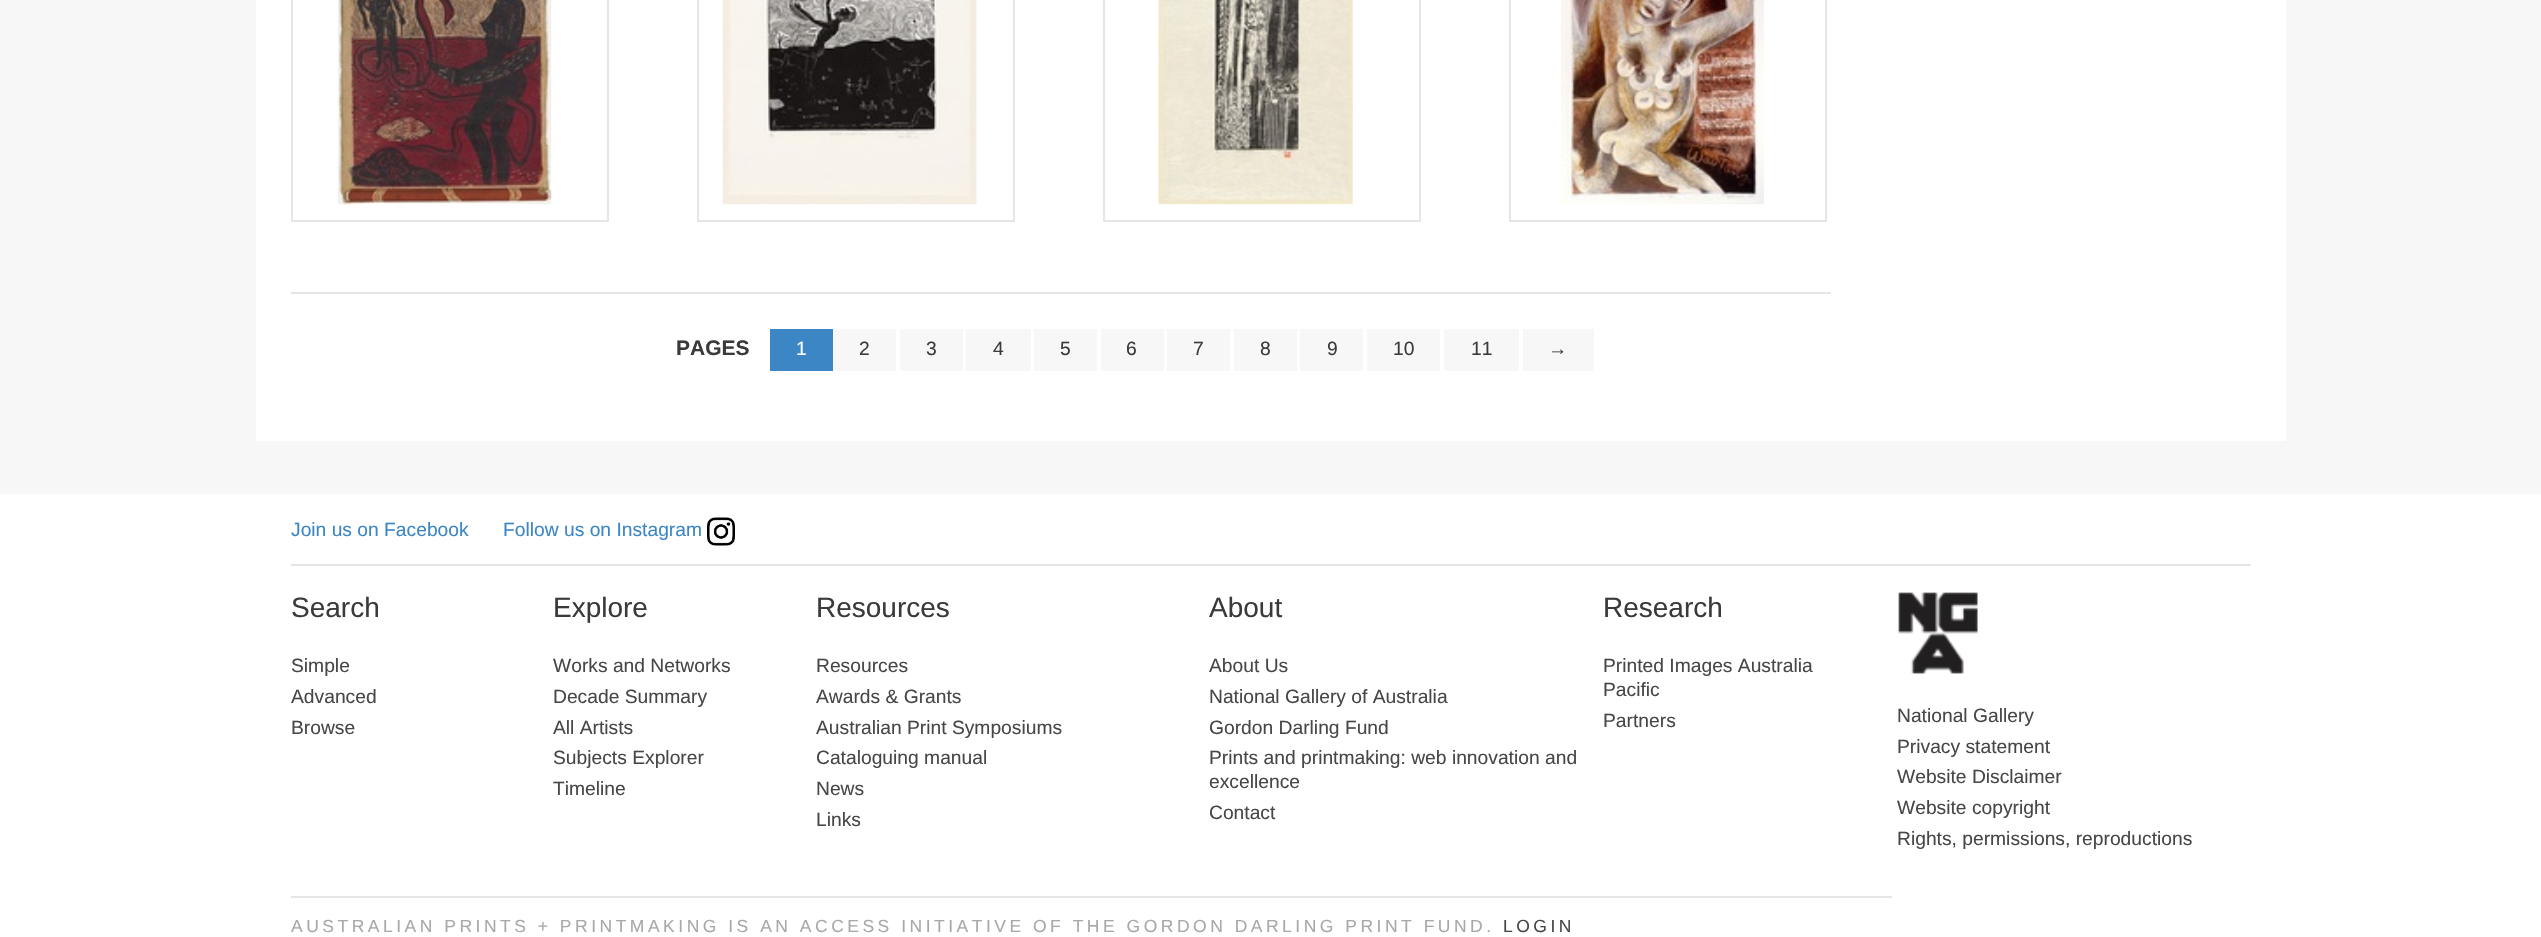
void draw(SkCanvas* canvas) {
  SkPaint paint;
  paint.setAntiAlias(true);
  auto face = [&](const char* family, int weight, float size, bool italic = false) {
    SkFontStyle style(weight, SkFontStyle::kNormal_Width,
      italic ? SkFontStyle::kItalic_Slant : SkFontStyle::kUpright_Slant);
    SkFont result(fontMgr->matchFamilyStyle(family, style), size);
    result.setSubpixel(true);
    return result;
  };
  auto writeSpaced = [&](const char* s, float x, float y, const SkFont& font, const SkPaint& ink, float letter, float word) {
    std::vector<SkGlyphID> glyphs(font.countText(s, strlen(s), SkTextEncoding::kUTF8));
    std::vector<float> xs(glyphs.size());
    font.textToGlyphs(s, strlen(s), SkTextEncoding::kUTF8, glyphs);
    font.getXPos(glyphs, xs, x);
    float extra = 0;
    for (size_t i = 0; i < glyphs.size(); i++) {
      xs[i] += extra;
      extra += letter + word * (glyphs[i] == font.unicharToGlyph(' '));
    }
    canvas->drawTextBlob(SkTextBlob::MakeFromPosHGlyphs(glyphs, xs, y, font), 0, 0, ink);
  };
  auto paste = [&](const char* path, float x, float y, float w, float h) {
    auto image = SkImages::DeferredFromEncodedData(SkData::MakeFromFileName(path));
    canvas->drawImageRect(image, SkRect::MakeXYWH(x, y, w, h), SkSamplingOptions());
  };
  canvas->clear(0xffffffff);
  paint.setColor(0xfff7f7f7);
  canvas->drawRect(SkRect::MakeXYWH(0, 0, 2541, 494), paint);
  paint.setColor(0xffffffff);
  canvas->drawRect(SkRect::MakeXYWH(256, 0, 2030, 441), paint);
  paint.setStroke(true);
  paint.setStrokeWidth(2);
  paint.setColor(0xffe6e6e6);
  canvas->drawRect(SkRect::MakeXYWH(292, -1, 316, 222), paint);
  paste("img/1.png", 337, 0, 215, 205);
  canvas->drawRect(SkRect::MakeXYWH(698, -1, 316, 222), paint);
  paste("img/2.png", 722, 0, 255, 205);
  canvas->drawRect(SkRect::MakeXYWH(1104, -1, 316, 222), paint);
  paste("img/3.png", 1158, 0, 195, 205);
  canvas->drawRect(SkRect::MakeXYWH(1510, -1, 316, 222), paint);
  paste("img/4.png", 1561, 0, 203, 205);
  paint.setStroke(false);
  {
    const struct { float x, y, w, h; SkColor color; } items[] = {
      {291, 292, 1540, 2, 0xffe6e6e6},
      {770, 329, 63, 42, 0xff3c86c5},
      {833, 329, 63, 42, 0xfff7f7f7},
      {900, 329, 63, 42, 0xfff7f7f7},
      {966, 329, 65, 42, 0xfff7f7f7},
      {1034, 329, 63, 42, 0xfff7f7f7},
      {1101, 329, 63, 42, 0xfff7f7f7},
      {1167, 329, 63, 42, 0xfff7f7f7},
      {1234, 329, 63, 42, 0xfff7f7f7},
      {1300, 329, 63, 42, 0xfff7f7f7},
      {1367, 329, 73, 42, 0xfff7f7f7},
      {1444, 329, 75, 42, 0xfff7f7f7},
      {1523, 329, 71, 42, 0xfff7f7f7},
      {291, 564, 1960, 2, 0xffe6e6e6},
    };
    for (auto [x, y, w, h, color] : items) {
      paint.setColor(color);
      canvas->drawRect(SkRect::MakeXYWH(x, y, w, h), paint);
    }
  }
  paste("img/5.png", 707, 517, 28, 29);
  canvas->drawRect(SkRect::MakeXYWH(291, 896, 1601, 2), paint);
  paste("img/6.png", 1898, 592, 80, 82);
  auto f0 = face("Liberation Sans", 700, 21);
  paint.setColor(0xff3a3a3a);
  canvas->drawString("PAGES", 676, 355, f0, paint);
  auto f1 = face("Liberation Sans", 400, 19.25f);
  paint.setColor(0xffffffff);
  canvas->drawString("1", 796, 355, f1, paint);
  paint.setColor(0xff3a3a3a);
  {
    const struct { const char* s; float x, y; } items[] = {
      {"2", 859, 355},
      {"3", 926, 355},
      {"4", 993, 355},
      {"5", 1060, 355},
      {"6", 1126, 355},
      {"7", 1193, 355},
      {"8", 1260, 355},
      {"9", 1327, 355},
      {"10", 1393, 355},
      {"11", 1471, 355},
      {"→", 1548, 355},
    };
    for (auto [s, x, y] : items) {
      canvas->drawString(s, x, y, f1, paint);
    }
  }
  paint.setColor(0xff3c86c5);
  canvas->drawString("Join us on Facebook", 291, 536, f1, paint);
  canvas->drawString("Follow us on Instagram", 503, 536, f1, paint);
  auto f2 = face("Liberation Sans", 400, 28);
  paint.setColor(0xff3a3a3a);
  canvas->drawString("Search", 291, 617, f2, paint);
  paint.setColor(0xff474747);
  {
    const struct { const char* s; float x, y; } items[] = {
      {"Simple", 291, 672},
      {"Advanced", 291, 703},
      {"Browse", 291, 734},
    };
    for (auto [s, x, y] : items) {
      canvas->drawString(s, x, y, f1, paint);
    }
  }
  paint.setColor(0xff3a3a3a);
  canvas->drawString("Explore", 553, 617, f2, paint);
  paint.setColor(0xff474747);
  {
    const struct { const char* s; float x, y; } items[] = {
      {"Works and Networks", 553, 672},
      {"Decade Summary", 553, 703},
      {"All Artists", 553, 734},
      {"Subjects Explorer", 553, 764},
      {"Timeline", 553, 795},
    };
    for (auto [s, x, y] : items) {
      canvas->drawString(s, x, y, f1, paint);
    }
  }
  paint.setColor(0xff3a3a3a);
  canvas->drawString("Resources", 816, 617, f2, paint);
  paint.setColor(0xff474747);
  {
    const struct { const char* s; float x, y; } items[] = {
      {"Resources", 816, 672},
      {"Awards & Grants", 816, 703},
      {"Australian Print Symposiums", 816, 734},
      {"Cataloguing manual", 816, 764},
      {"News", 816, 795},
      {"Links", 816, 826},
    };
    for (auto [s, x, y] : items) {
      canvas->drawString(s, x, y, f1, paint);
    }
  }
  paint.setColor(0xff3a3a3a);
  canvas->drawString("About", 1209, 617, f2, paint);
  paint.setColor(0xff474747);
  {
    const struct { const char* s; float x, y; } items[] = {
      {"About Us", 1209, 672},
      {"National Gallery of Australia", 1209, 703},
      {"Gordon Darling Fund", 1209, 734},
      {"Prints and printmaking: web innovation and", 1209, 764},
      {"excellence", 1209, 788},
      {"Contact", 1209, 819},
    };
    for (auto [s, x, y] : items) {
      canvas->drawString(s, x, y, f1, paint);
    }
  }
  paint.setColor(0xff3a3a3a);
  canvas->drawString("Research", 1603, 617, f2, paint);
  paint.setColor(0xff474747);
  {
    const struct { const char* s; float x, y; } items[] = {
      {"Printed Images Australia", 1603, 672},
      {"Pacific", 1603, 696},
      {"Partners", 1603, 727},
      {"National Gallery", 1897, 722},
      {"Privacy statement", 1897, 753},
      {"Website Disclaimer", 1897, 783},
      {"Website copyright", 1897, 814},
      {"Rights, permissions, reproductions", 1897, 845},
    };
    for (auto [s, x, y] : items) {
      canvas->drawString(s, x, y, f1, paint);
    }
  }
  auto f3 = face("Liberation Sans", 400, 17.5f);
  paint.setColor(0xffa8a8a8);
  writeSpaced("AUSTRALIAN PRINTS + PRINTMAKING IS AN ACCESS INITIATIVE OF THE GORDON DARLING PRINT FUND.", 291, 932, f3, paint, 3.5f, 0);
  paint.setColor(0xff474747);
  writeSpaced("LOGIN", 1503, 932, f3, paint, 3.5f, 0);
}
